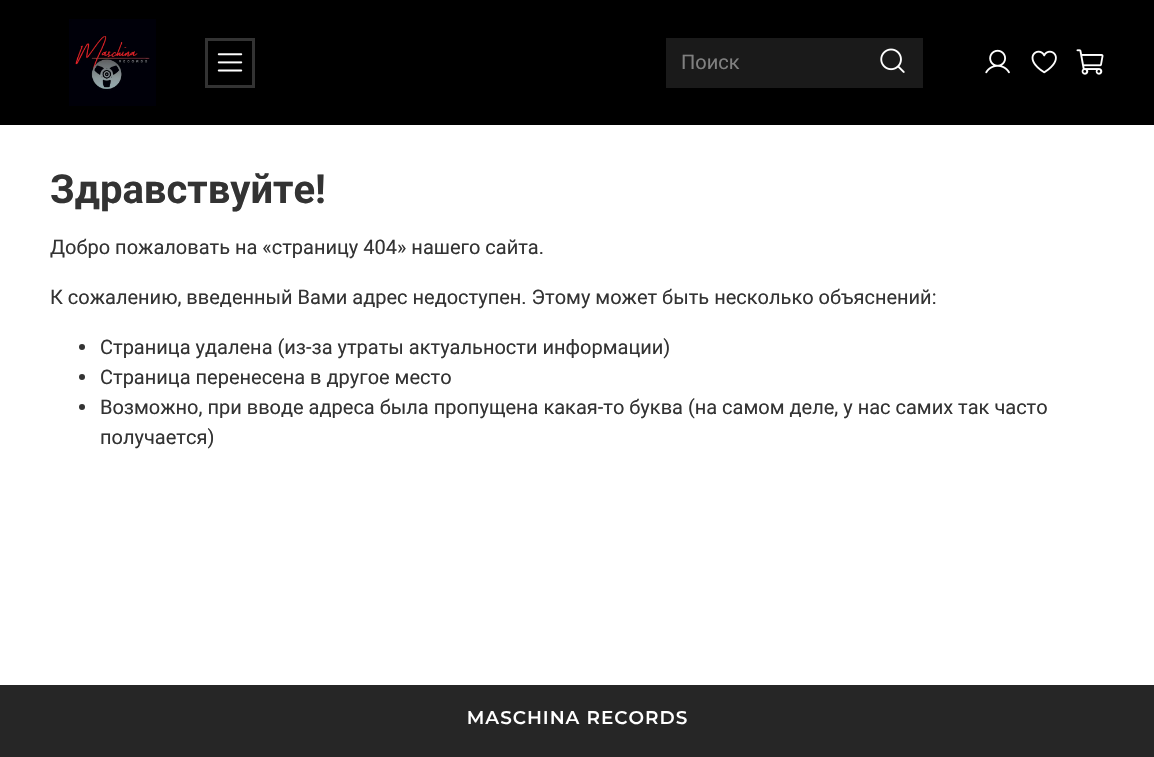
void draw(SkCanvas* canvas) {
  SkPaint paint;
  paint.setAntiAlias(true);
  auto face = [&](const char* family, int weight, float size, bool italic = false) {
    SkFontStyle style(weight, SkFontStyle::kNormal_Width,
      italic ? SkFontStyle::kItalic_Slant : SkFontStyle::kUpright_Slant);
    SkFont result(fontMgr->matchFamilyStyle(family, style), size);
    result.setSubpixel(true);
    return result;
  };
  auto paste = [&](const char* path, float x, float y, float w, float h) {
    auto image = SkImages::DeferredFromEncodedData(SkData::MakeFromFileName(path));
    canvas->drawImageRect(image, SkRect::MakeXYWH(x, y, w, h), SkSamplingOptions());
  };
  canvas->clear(0xffffffff);
  paint.setColor(0xff000000);
  canvas->drawRect(SkRect::MakeXYWH(0, 0, 1154, 125), paint);
  paste("img/1.png", 69, 19, 87, 87);
  paint.setStroke(true);
  paint.setStrokeWidth(3);
  paint.setColor(0xff333333);
  canvas->drawRect(SkRect::MakeXYWH(206.5f, 39.5f, 47, 47), paint);
  paste("img/2.png", 217, 53, 26, 19);
  paint.setStroke(false);
  paint.setColor(0xff1a1a1a);
  canvas->drawRect(SkRect::MakeXYWH(666, 38, 257, 50), paint);
  paste("img/3.png", 880, 48, 25, 25);
  paste("img/4.png", 985, 49, 25, 25);
  paste("img/5.png", 1031, 50, 26, 24);
  paste("img/6.png", 1076, 49, 28, 26);
  paint.setColor(0xff333333);
  canvas->drawCircle(82, 347, 3, paint);
  canvas->drawCircle(82, 377, 3, paint);
  canvas->drawCircle(82, 407, 3, paint);
  paint.setColor(0xff262626);
  canvas->drawRect(SkRect::MakeXYWH(0, 685, 1154, 72), paint);
  paste("img/7.png", 468, 711, 219, 14);
  auto f0 = face("Roboto", 400, 20);
  paint.setColor(0xff808080);
  canvas->drawString("Поиск", 681, 69, f0, paint);
  auto f1 = face("Roboto", 700, 40);
  paint.setColor(0xff333333);
  canvas->drawString("Здравствуйте!", 50, 203, f1, paint);
  {
    const struct { const char* s; float x, y; } items[] = {
      {"Добро пожаловать на «страницу 404» нашего сайта.", 50, 254},
      {"К сожалению, введенный Вами адрес недоступен. Этому может быть несколько объяснений:", 50, 304},
      {"Страница удалена (из-за утраты актуальности информации)", 100, 354},
      {"Страница перенесена в другое место", 100, 384},
      {"Возможно, при вводе адреса была пропущена какая-то буква (на самом деле, у нас самих так часто", 100, 414},
      {"получается)", 100, 444},
    };
    for (auto [s, x, y] : items) {
      canvas->drawString(s, x, y, f0, paint);
    }
  }
}
